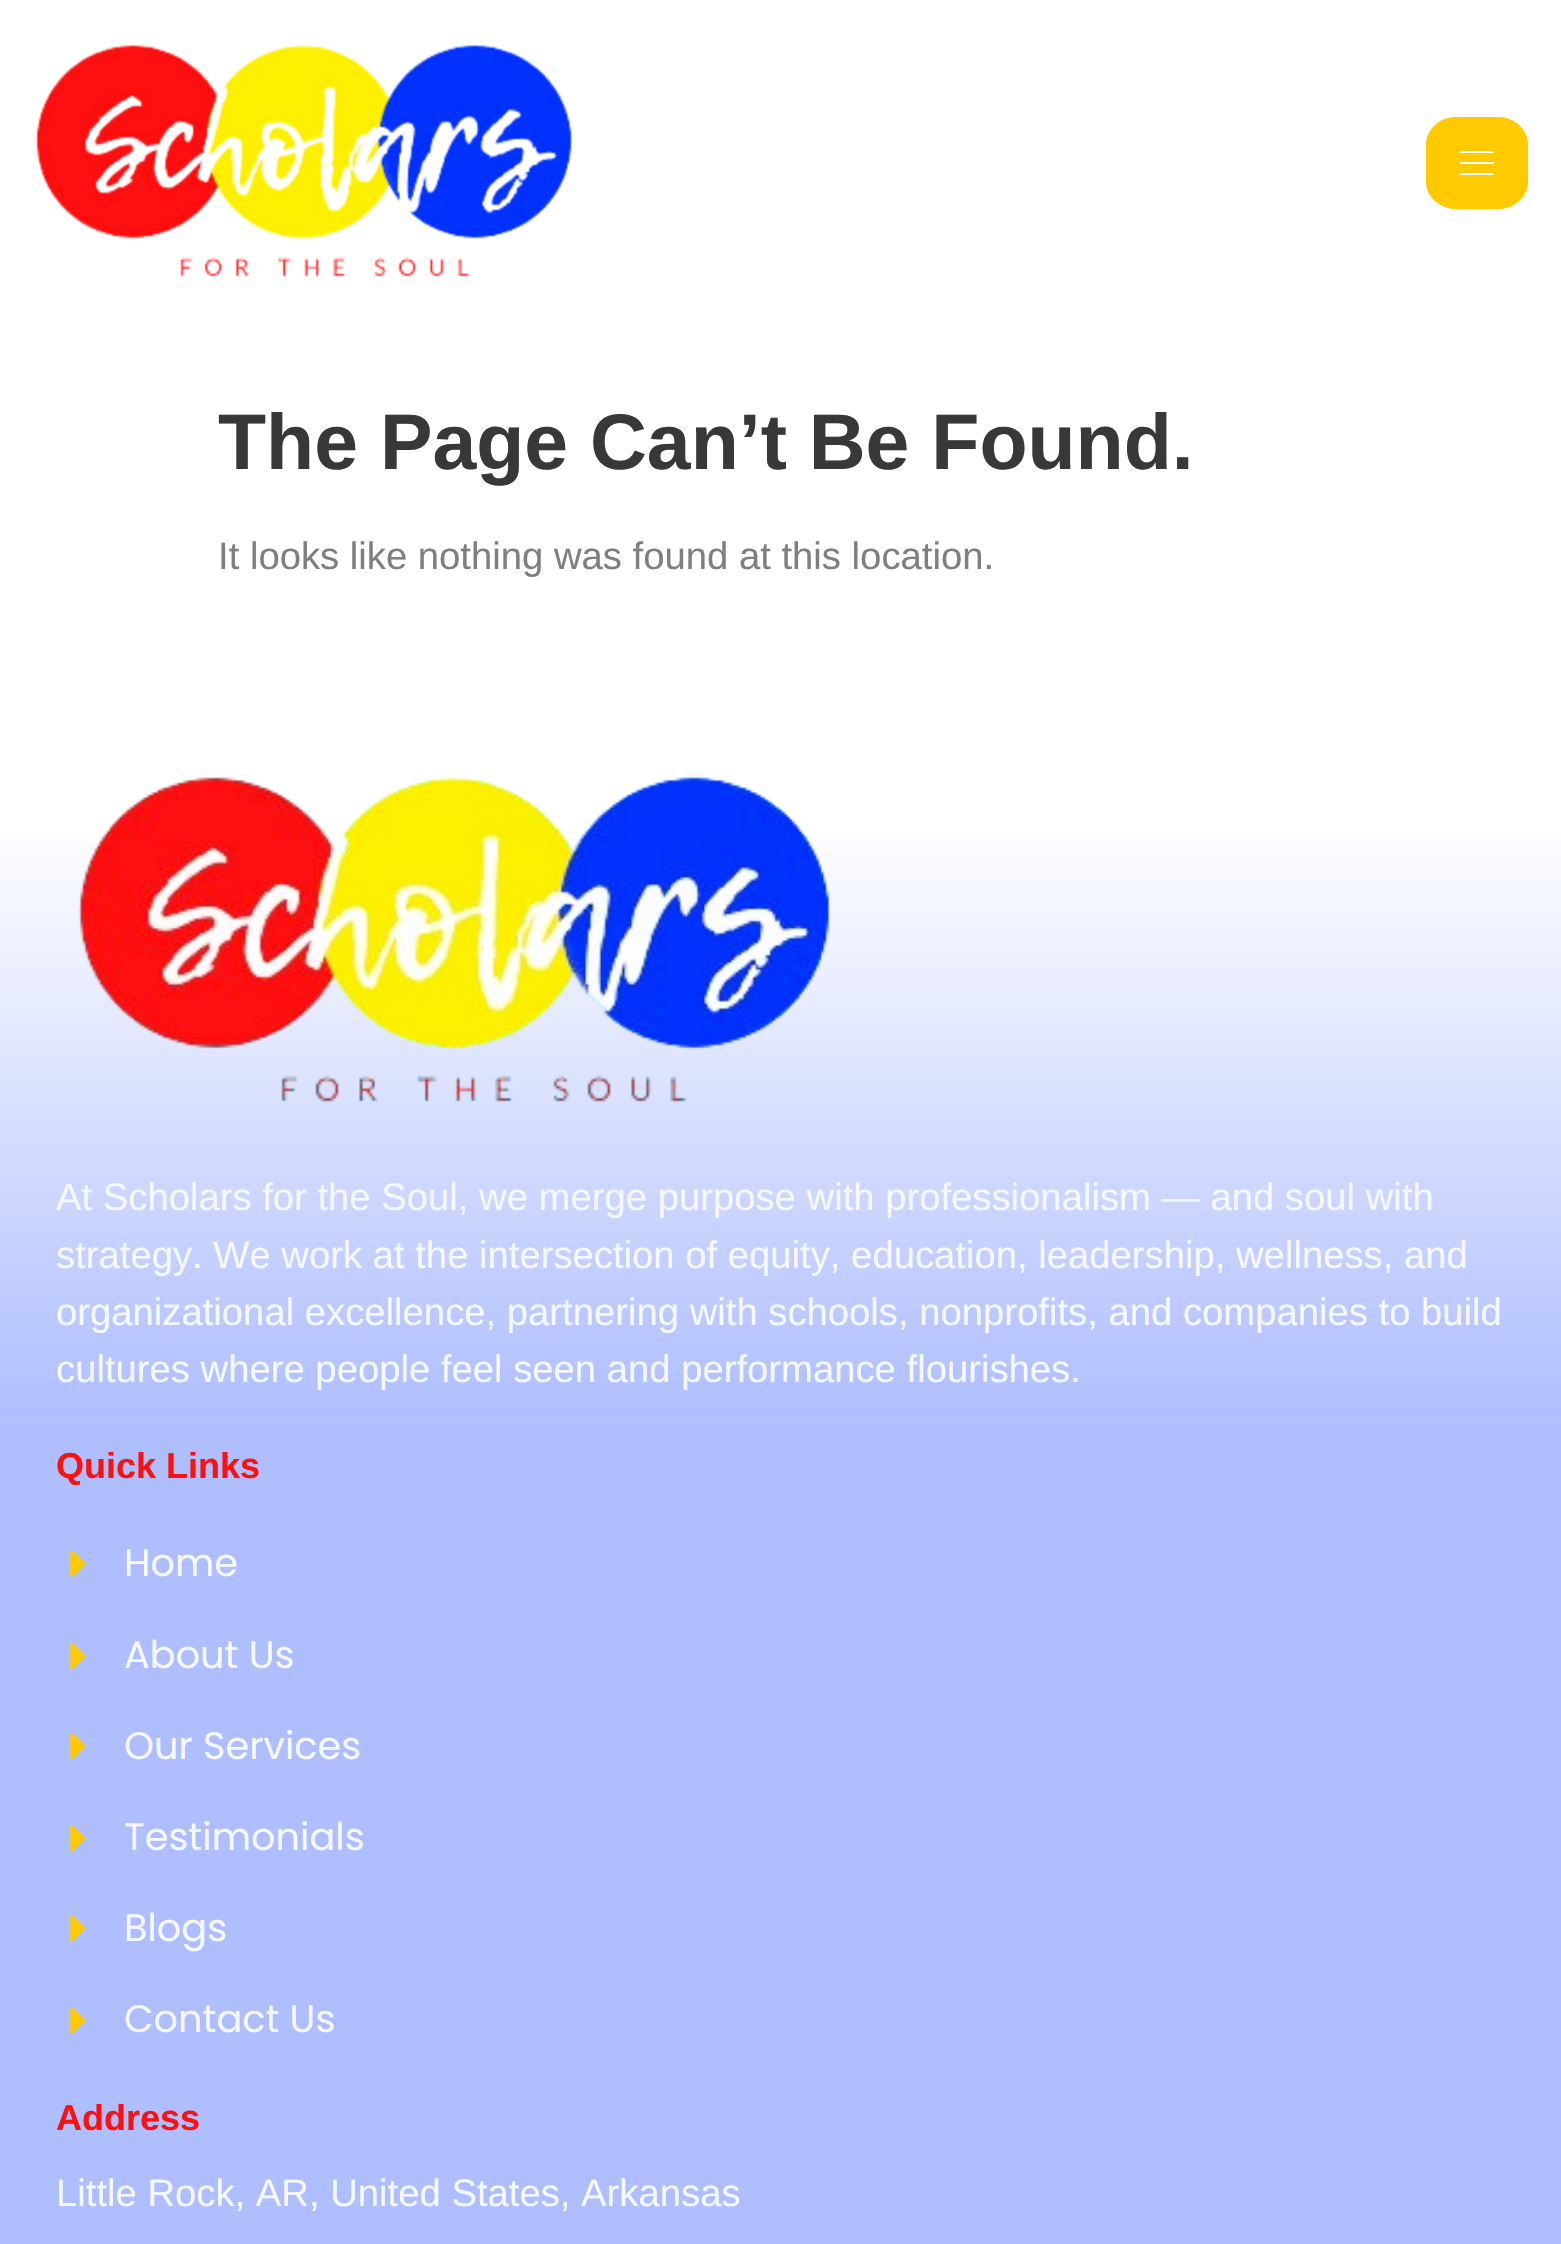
void draw(SkCanvas* canvas) {
  SkPaint paint;
  paint.setAntiAlias(true);
  auto face = [&](const char* family, int weight, float size, bool italic = false) {
    SkFontStyle style(weight, SkFontStyle::kNormal_Width,
      italic ? SkFontStyle::kItalic_Slant : SkFontStyle::kUpright_Slant);
    SkFont result(fontMgr->matchFamilyStyle(family, style), size);
    result.setSubpixel(true);
    return result;
  };
  auto paste = [&](const char* path, float x, float y, float w, float h) {
    auto image = SkImages::DeferredFromEncodedData(SkData::MakeFromFileName(path));
    canvas->drawImageRect(image, SkRect::MakeXYWH(x, y, w, h), SkSamplingOptions());
  };
  auto shape = [&](const char* data, bool evenOdd = false) {
    SkPath result = *SkParsePath::FromSVGString(data);
    if (evenOdd) result.setFillType(SkPathFillType::kEvenOdd);
    return result;
  };
  canvas->clear(0xffffffff);
  paste("img/1.png", 35, 44, 538, 233);
  paint.setColor(0xffffcb00);
  canvas->drawPath(shape("M1457 117H1497C1514 117 1528 129 1528 145V182C1528 197 1514 209 1497 209H1457C1440 209 1426 197 1426 182V145C1426 129 1440 117 1457 117Z"), paint);
  paint.setStroke(true);
  paint.setStrokeWidth(2.2f);
  canvas->drawPath(shape("M1457 118H1497.5C1513.5 118 1526.5 130 1526.5 144.5V181.5C1526.5 196 1513.5 208 1497.5 208H1457C1440.5 208 1427.5 196 1427.5 181.5V144.5C1427.5 130 1440.5 118 1457 118Z"), paint);
  paint.setStroke(false);
  {
    const struct { float x, y, w, h; SkColor color; } items[] = {
      {1460, 151, 34, 2, 0xffffffff},
      {1460, 162, 34, 2, 0xffffffff},
      {1460, 173, 34, 2, 0xffffffff},
    };
    for (auto [x, y, w, h, color] : items) {
      paint.setColor(color);
      canvas->drawRect(SkRect::MakeXYWH(x, y, w, h), paint);
    }
  }
  {
    const SkColor colors[] = {0xffffffff, 0xffaebeff};
    const float stops[] = {0.1f, 0.4f};
    const SkPoint ends[] = {{781, 619}, {781, 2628}};
    paint.setShader(SkGradientShader::MakeLinear(ends, colors, stops, 2, SkTileMode::kClamp));
    paint.setAlpha(255);
  }
  canvas->drawRect(SkRect::MakeXYWH(0, 839, 1561, 1405), paint);
  paste("img/2.png", 78, 775, 752, 328);
  paste("img/3.png", 70, 1550, 16, 27);
  paste("img/4.png", 70, 1643, 16, 26);
  paste("img/4.png", 70, 1733, 16, 26);
  paste("img/5.png", 70, 1825, 16, 27);
  paste("img/5.png", 70, 1915, 16, 27);
  paste("img/6.png", 70, 2007, 16, 27);
  auto f0 = face("Liberation Sans", 700, 78.75f);
  paint.setShader(nullptr);
  paint.setColor(0xff383838);
  canvas->drawString("The Page Can’t Be Found.", 218, 469, f0, paint);
  auto f1 = face("Liberation Sans", 400, 38.25f);
  paint.setColor(0xff7f7f7f);
  canvas->drawString("It looks like nothing was found at this location.", 218, 569, f1, paint);
  paint.setColor(0xfff6f8ff);
  {
    const struct { const char* s; float x, y; } items[] = {
      {"At Scholars for the Soul, we merge purpose with professionalism — and soul with", 56, 1210},
      {"strategy. We work at the intersection of equity, education, leadership, wellness, and", 56, 1268},
      {"organizational excellence, partnering with schools, nonprofits, and companies to build", 56, 1325},
      {"cultures where people feel seen and performance flourishes.", 56, 1382},
    };
    for (auto [s, x, y] : items) {
      canvas->drawString(s, x, y, f1, paint);
    }
  }
  auto f2 = face("Liberation Sans", 700, 36);
  paint.setColor(0xffff1010);
  canvas->drawString("Quick Links", 56, 1478, f2, paint);
  auto f3 = face("Poppins", 400, 38.25f);
  paint.setColor(0xfff6f8ff);
  {
    const struct { const char* s; float x, y; } items[] = {
      {"Home", 124, 1576},
      {"About Us", 124, 1668},
      {"Our Services", 124, 1759},
      {"Testimonials", 124, 1850},
      {"Blogs", 124, 1941},
      {"Contact Us", 124, 2032},
    };
    for (auto [s, x, y] : items) {
      canvas->drawString(s, x, y, f3, paint);
    }
  }
  paint.setColor(0xffff1010);
  canvas->drawString("Address", 56, 2130, f2, paint);
  paint.setColor(0xfff6f8ff);
  canvas->drawString("Little Rock, AR, United States, Arkansas", 56, 2206, f1, paint);
}
